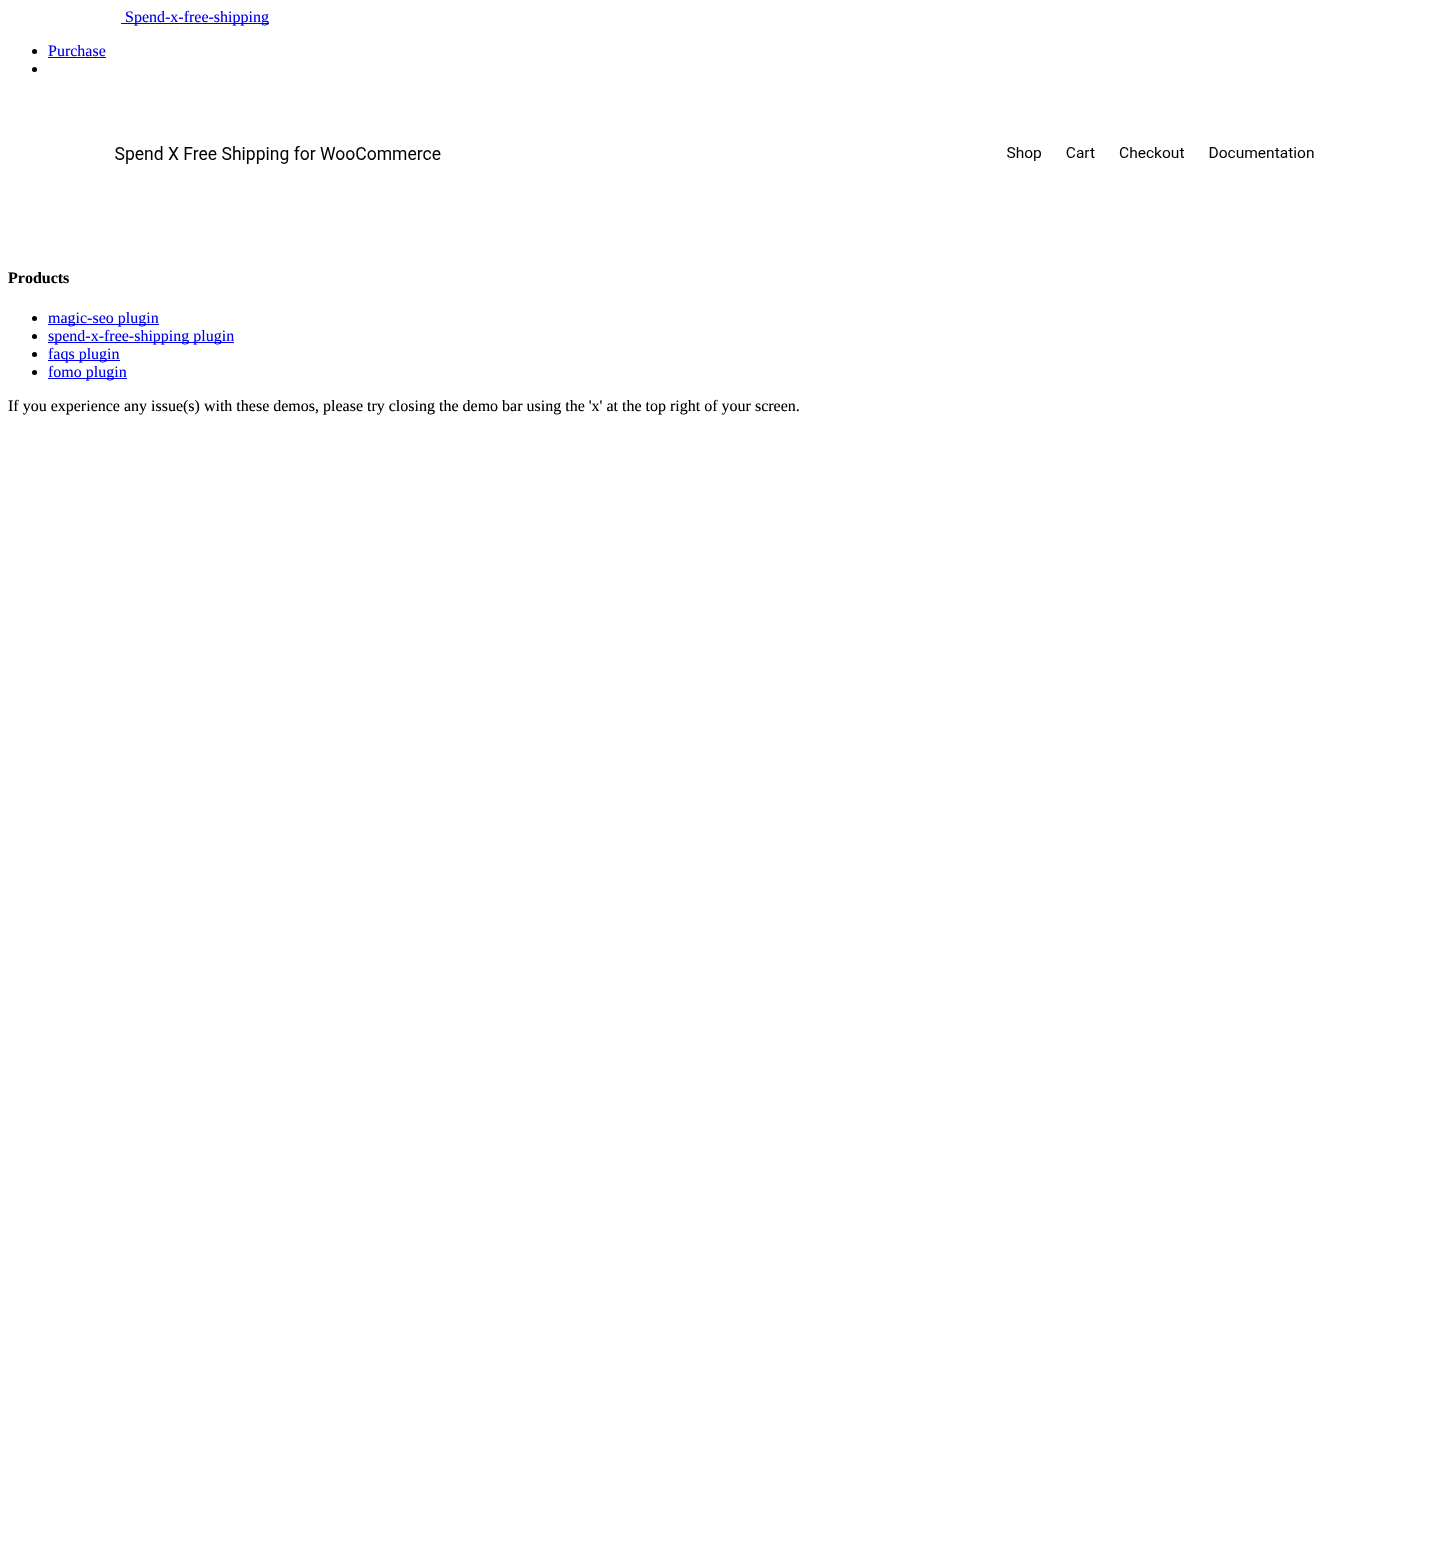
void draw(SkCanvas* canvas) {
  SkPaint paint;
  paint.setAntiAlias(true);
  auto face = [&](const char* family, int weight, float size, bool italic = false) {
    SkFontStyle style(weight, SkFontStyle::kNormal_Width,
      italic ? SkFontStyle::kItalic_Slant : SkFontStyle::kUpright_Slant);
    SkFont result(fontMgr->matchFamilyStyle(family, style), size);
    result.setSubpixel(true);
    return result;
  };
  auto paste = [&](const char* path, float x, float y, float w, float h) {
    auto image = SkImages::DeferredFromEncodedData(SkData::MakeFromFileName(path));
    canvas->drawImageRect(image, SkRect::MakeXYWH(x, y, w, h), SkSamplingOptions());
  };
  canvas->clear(0xffffffff);
  paint.setColor(0xff0000ee);
  canvas->drawRect(SkRect::MakeXYWH(121, 23, 148, 1), paint);
  paint.setColor(0xff000000);
  canvas->drawCircle(34.5f, 51.5f, 2.5f, paint);
  paint.setColor(0xff0000ee);
  canvas->drawRect(SkRect::MakeXYWH(48, 57, 58, 1), paint);
  paint.setColor(0xff000000);
  canvas->drawCircle(34.5f, 69.5f, 2.5f, paint);
  paste("img/1.png", 115, 146, 1199, 18);
  canvas->drawCircle(34.5f, 318.5f, 2.5f, paint);
  paint.setColor(0xff0000ee);
  canvas->drawRect(SkRect::MakeXYWH(48, 324, 111, 1), paint);
  paint.setColor(0xff000000);
  canvas->drawCircle(34.5f, 336.5f, 2.5f, paint);
  paint.setColor(0xff0000ee);
  canvas->drawRect(SkRect::MakeXYWH(48, 342, 186, 1), paint);
  paint.setColor(0xff000000);
  canvas->drawCircle(34.5f, 354.5f, 2.5f, paint);
  paint.setColor(0xff0000ee);
  canvas->drawRect(SkRect::MakeXYWH(48, 360, 72, 1), paint);
  paint.setColor(0xff000000);
  canvas->drawCircle(34.5f, 372.5f, 2.5f, paint);
  paint.setColor(0xff0000ee);
  canvas->drawRect(SkRect::MakeXYWH(48, 378, 79, 1), paint);
  auto f0 = face("Liberation Serif", 400, 16);
  canvas->drawString("Spend-x-free-shipping", 125, 22, f0, paint);
  canvas->drawString("Purchase", 48, 56, f0, paint);
  auto f1 = face("Liberation Serif", 700, 16);
  paint.setColor(0xff000000);
  canvas->drawString("Products", 8, 283, f1, paint);
  paint.setColor(0xff0000ee);
  {
    const struct { const char* s; float x, y; } items[] = {
      {"magic-seo plugin", 48, 323},
      {"spend-x-free-shipping plugin", 48, 341},
      {"faqs plugin", 48, 359},
      {"fomo plugin", 48, 377},
    };
    for (auto [s, x, y] : items) {
      canvas->drawString(s, x, y, f0, paint);
    }
  }
  paint.setColor(0xff000000);
  canvas->drawString("If you experience any issue(s) with these demos, please try closing the demo bar using the 'x' at the top right of your screen.", 8, 411, f0, paint);
}
